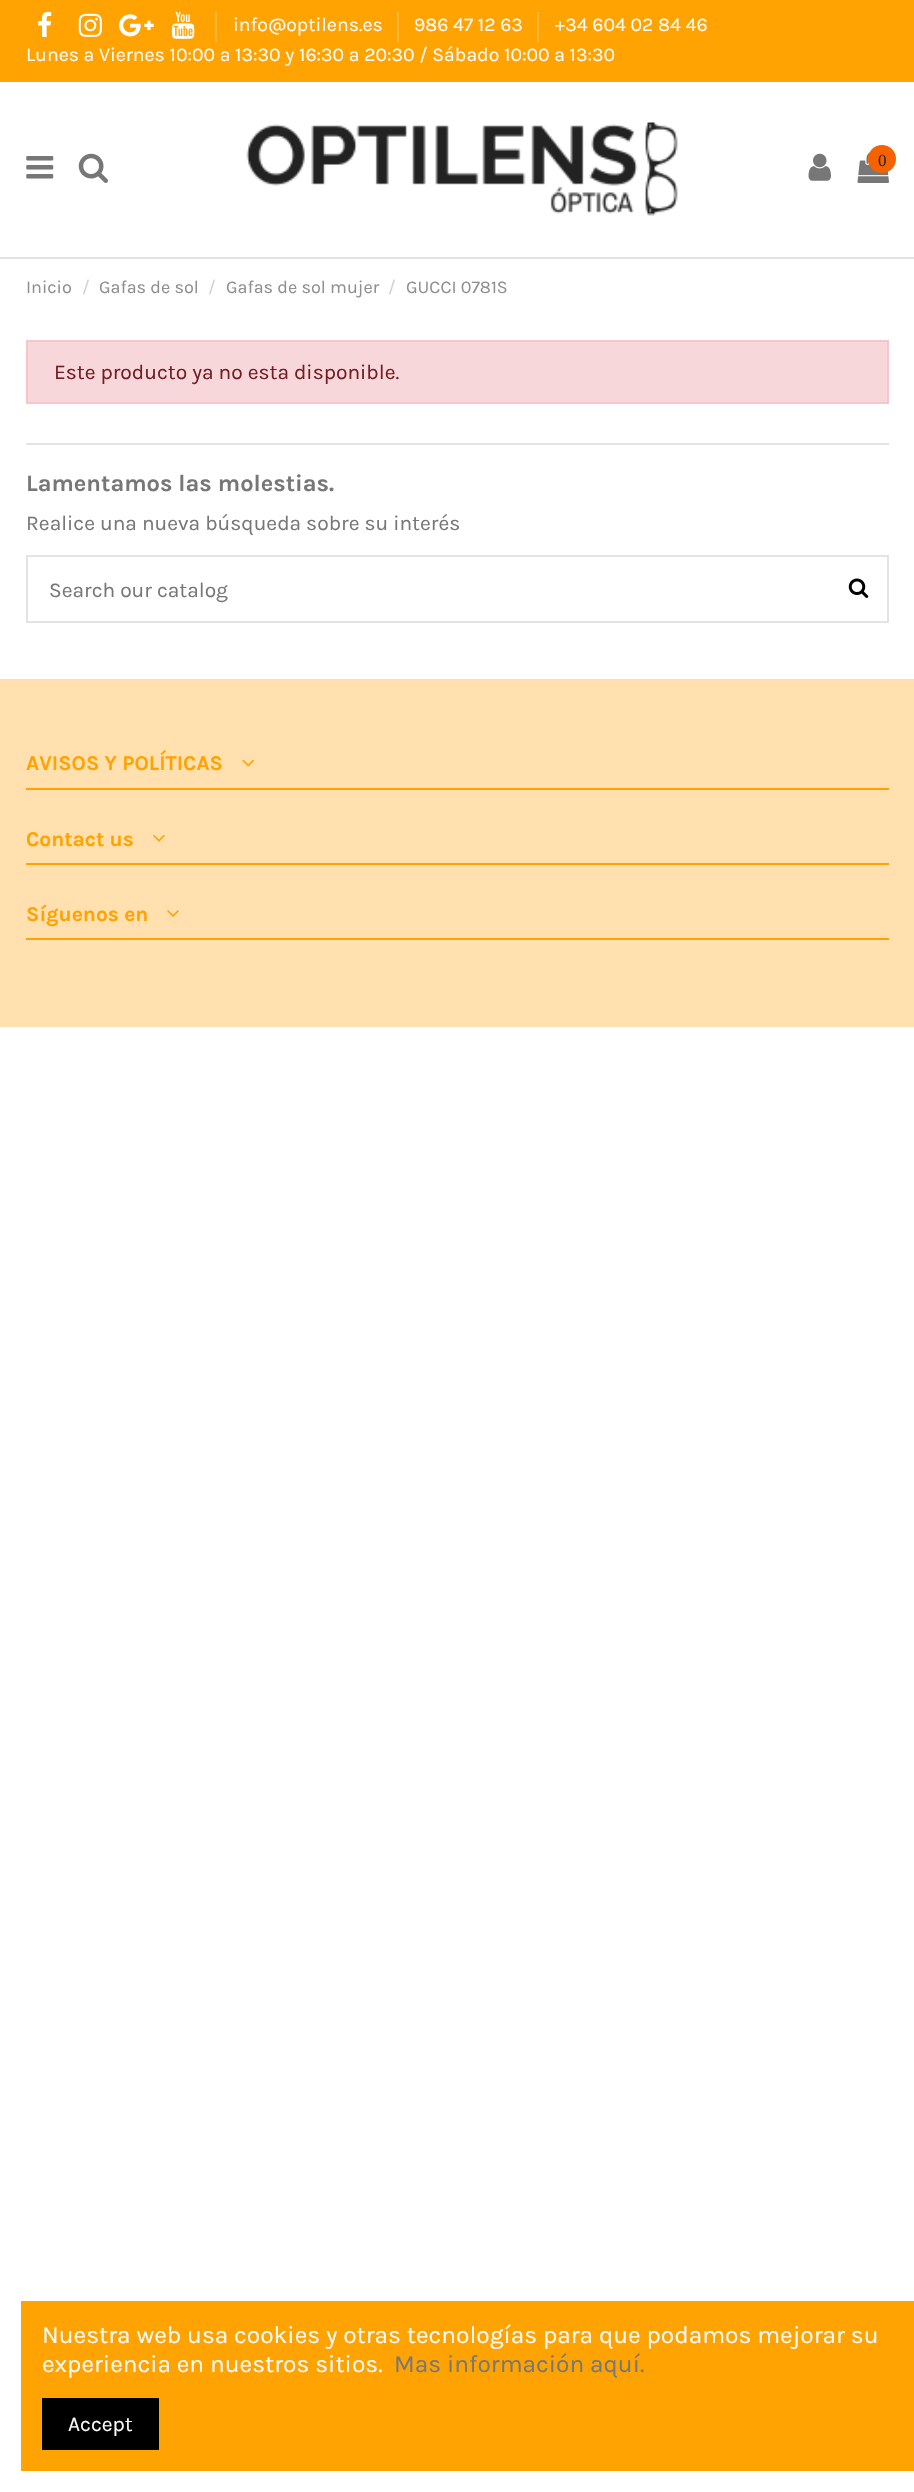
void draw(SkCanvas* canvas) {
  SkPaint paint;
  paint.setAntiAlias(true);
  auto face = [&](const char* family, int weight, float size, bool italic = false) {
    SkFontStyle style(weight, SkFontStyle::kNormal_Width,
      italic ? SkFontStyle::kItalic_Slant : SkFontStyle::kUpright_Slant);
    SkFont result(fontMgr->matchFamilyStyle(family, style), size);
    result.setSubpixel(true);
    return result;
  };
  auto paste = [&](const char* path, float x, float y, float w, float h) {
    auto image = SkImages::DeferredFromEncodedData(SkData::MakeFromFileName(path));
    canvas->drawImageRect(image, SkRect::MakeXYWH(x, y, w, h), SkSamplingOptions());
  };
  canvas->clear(0xffffffff);
  paint.setColor(0xffffa303);
  canvas->drawRect(SkRect::MakeXYWH(0, 0, 914, 82), paint);
  paste("img/1.png", 38, 11, 14, 26);
  paste("img/2.png", 78, 13, 24, 24);
  paste("img/3.png", 119, 14, 35, 23);
  paste("img/4.png", 171, 11, 24, 28);
  {
    const struct { float x, y, w, h; SkColor color; } items[] = {
      {215, 12, 2, 30, 0xffffb535},
      {397, 12, 2, 30, 0xffffb535},
      {537, 12, 2, 30, 0xffffb535},
      {0, 257, 914, 2, 0xffe3e3e3},
    };
    for (auto [x, y, w, h, color] : items) {
      paint.setColor(color);
      canvas->drawRect(SkRect::MakeXYWH(x, y, w, h), paint);
    }
  }
  paste("img/5.png", 26, 156, 28, 23);
  paste("img/6.png", 78, 153, 30, 30);
  paste("img/7.png", 246, 122, 432, 94);
  paste("img/8.png", 808, 153, 23, 28);
  paste("img/9.png", 857, 152, 32, 31);
  paint.setColor(0xfff76201);
  canvas->drawCircle(882, 159, 14, paint);
  paint.setColor(0xfff8d7da);
  canvas->drawRect(SkRect::MakeXYWH(27, 341, 861, 62), paint);
  paint.setStroke(true);
  paint.setStrokeWidth(2);
  paint.setColor(0xfff5c6cb);
  canvas->drawRect(SkRect::MakeXYWH(27, 341, 861, 62), paint);
  paint.setStroke(false);
  paint.setColor(0xffe3e3e3);
  canvas->drawRect(SkRect::MakeXYWH(26, 443, 863, 2), paint);
  paint.setStroke(true);
  canvas->drawRect(SkRect::MakeXYWH(27, 556, 861, 66), paint);
  paste("img/10.png", 848, 578, 21, 20);
  paint.setStroke(false);
  paint.setColor(0xffffe0ae);
  canvas->drawRect(SkRect::MakeXYWH(0, 679, 914, 348), paint);
  paint.setColor(0xffffa303);
  canvas->drawRect(SkRect::MakeXYWH(26, 788, 863, 2), paint);
  paste("img/11.png", 242, 759, 13, 8);
  canvas->drawRect(SkRect::MakeXYWH(26, 863, 863, 2), paint);
  paste("img/12.png", 153, 835, 12, 7);
  canvas->drawRect(SkRect::MakeXYWH(26, 938, 863, 2), paint);
  paste("img/13.png", 167, 910, 12, 7);
  canvas->drawRect(SkRect::MakeXYWH(21, 2301, 893, 170), paint);
  paint.setColor(0xff000000);
  canvas->drawRect(SkRect::MakeXYWH(42, 2398, 117, 52), paint);
  auto f0 = face("Karla", 400, 19.5f);
  paint.setColor(0xfffafafa);
  {
    const struct { const char* s; float x, y; } items[] = {
      {"info@optilens.es", 233, 31},
      {"986 47 12 63", 414, 31},
      {"+34 604 02 84 46", 555, 31},
      {"Lunes a Viernes 10:00 a 13:30 y 16:30 a 20:30 / Sábado 10:00 a 13:30", 26, 61},
    };
    for (auto [s, x, y] : items) {
      canvas->drawString(s, x, y, f0, paint);
    }
  }
  auto f1 = face("Liberation Serif", 400, 17);
  paint.setColor(0xff312626);
  canvas->drawString("0", 878, 166, f1, paint);
  auto f2 = face("Karla", 400, 18);
  paint.setColor(0xff8f8f8f);
  canvas->drawString("Inicio", 26, 293, f2, paint);
  paint.setColor(0xffd2d2d2);
  canvas->drawString("/", 82, 293, f2, paint);
  paint.setColor(0xff8f8f8f);
  canvas->drawString("Gafas de sol", 99, 293, f2, paint);
  paint.setColor(0xffd2d2d2);
  canvas->drawString("/", 208, 293, f2, paint);
  paint.setColor(0xff8f8f8f);
  canvas->drawString("Gafas de sol mujer", 226, 293, f2, paint);
  paint.setColor(0xffd2d2d2);
  canvas->drawString("/", 388, 293, f2, paint);
  paint.setColor(0xff8f8f8f);
  canvas->drawString("GUCCI 0781S", 406, 293, f2, paint);
  auto f3 = face("Karla", 400, 21);
  paint.setColor(0xff721c24);
  canvas->drawString("Este producto ya no esta disponible.", 54, 379, f3, paint);
  auto f4 = face("Karla", 700, 23.6f);
  paint.setColor(0xff777777);
  canvas->drawString("Lamentamos las molestias.", 26, 491, f4, paint);
  canvas->drawString("Realice una nueva búsqueda sobre su interés", 26, 530, f3, paint);
  canvas->drawString("Search our catalog", 49, 597, f3, paint);
  auto f5 = face("Karla", 700, 21);
  paint.setColor(0xffffa303);
  {
    const struct { const char* s; float x, y; } items[] = {
      {"AVISOS Y POLÍTICAS", 26, 770},
      {"Contact us", 26, 846},
      {"Síguenos en", 26, 921},
    };
    for (auto [s, x, y] : items) {
      canvas->drawString(s, x, y, f5, paint);
    }
  }
  auto f6 = face("Karla", 400, 24.5f);
  paint.setColor(0xfffafafa);
  canvas->drawString("Nuestra web usa cookies y otras tecnologías para que podamos mejorar su", 42, 2343, f6, paint);
  canvas->drawString("experiencia en nuestros sitios.", 42, 2372, f6, paint);
  paint.setColor(0xff777777);
  canvas->drawString("Mas información aquí.", 394, 2372, f6, paint);
  paint.setColor(0xfffafafa);
  canvas->drawString("Accept", 68, 2431, f3, paint);
}
